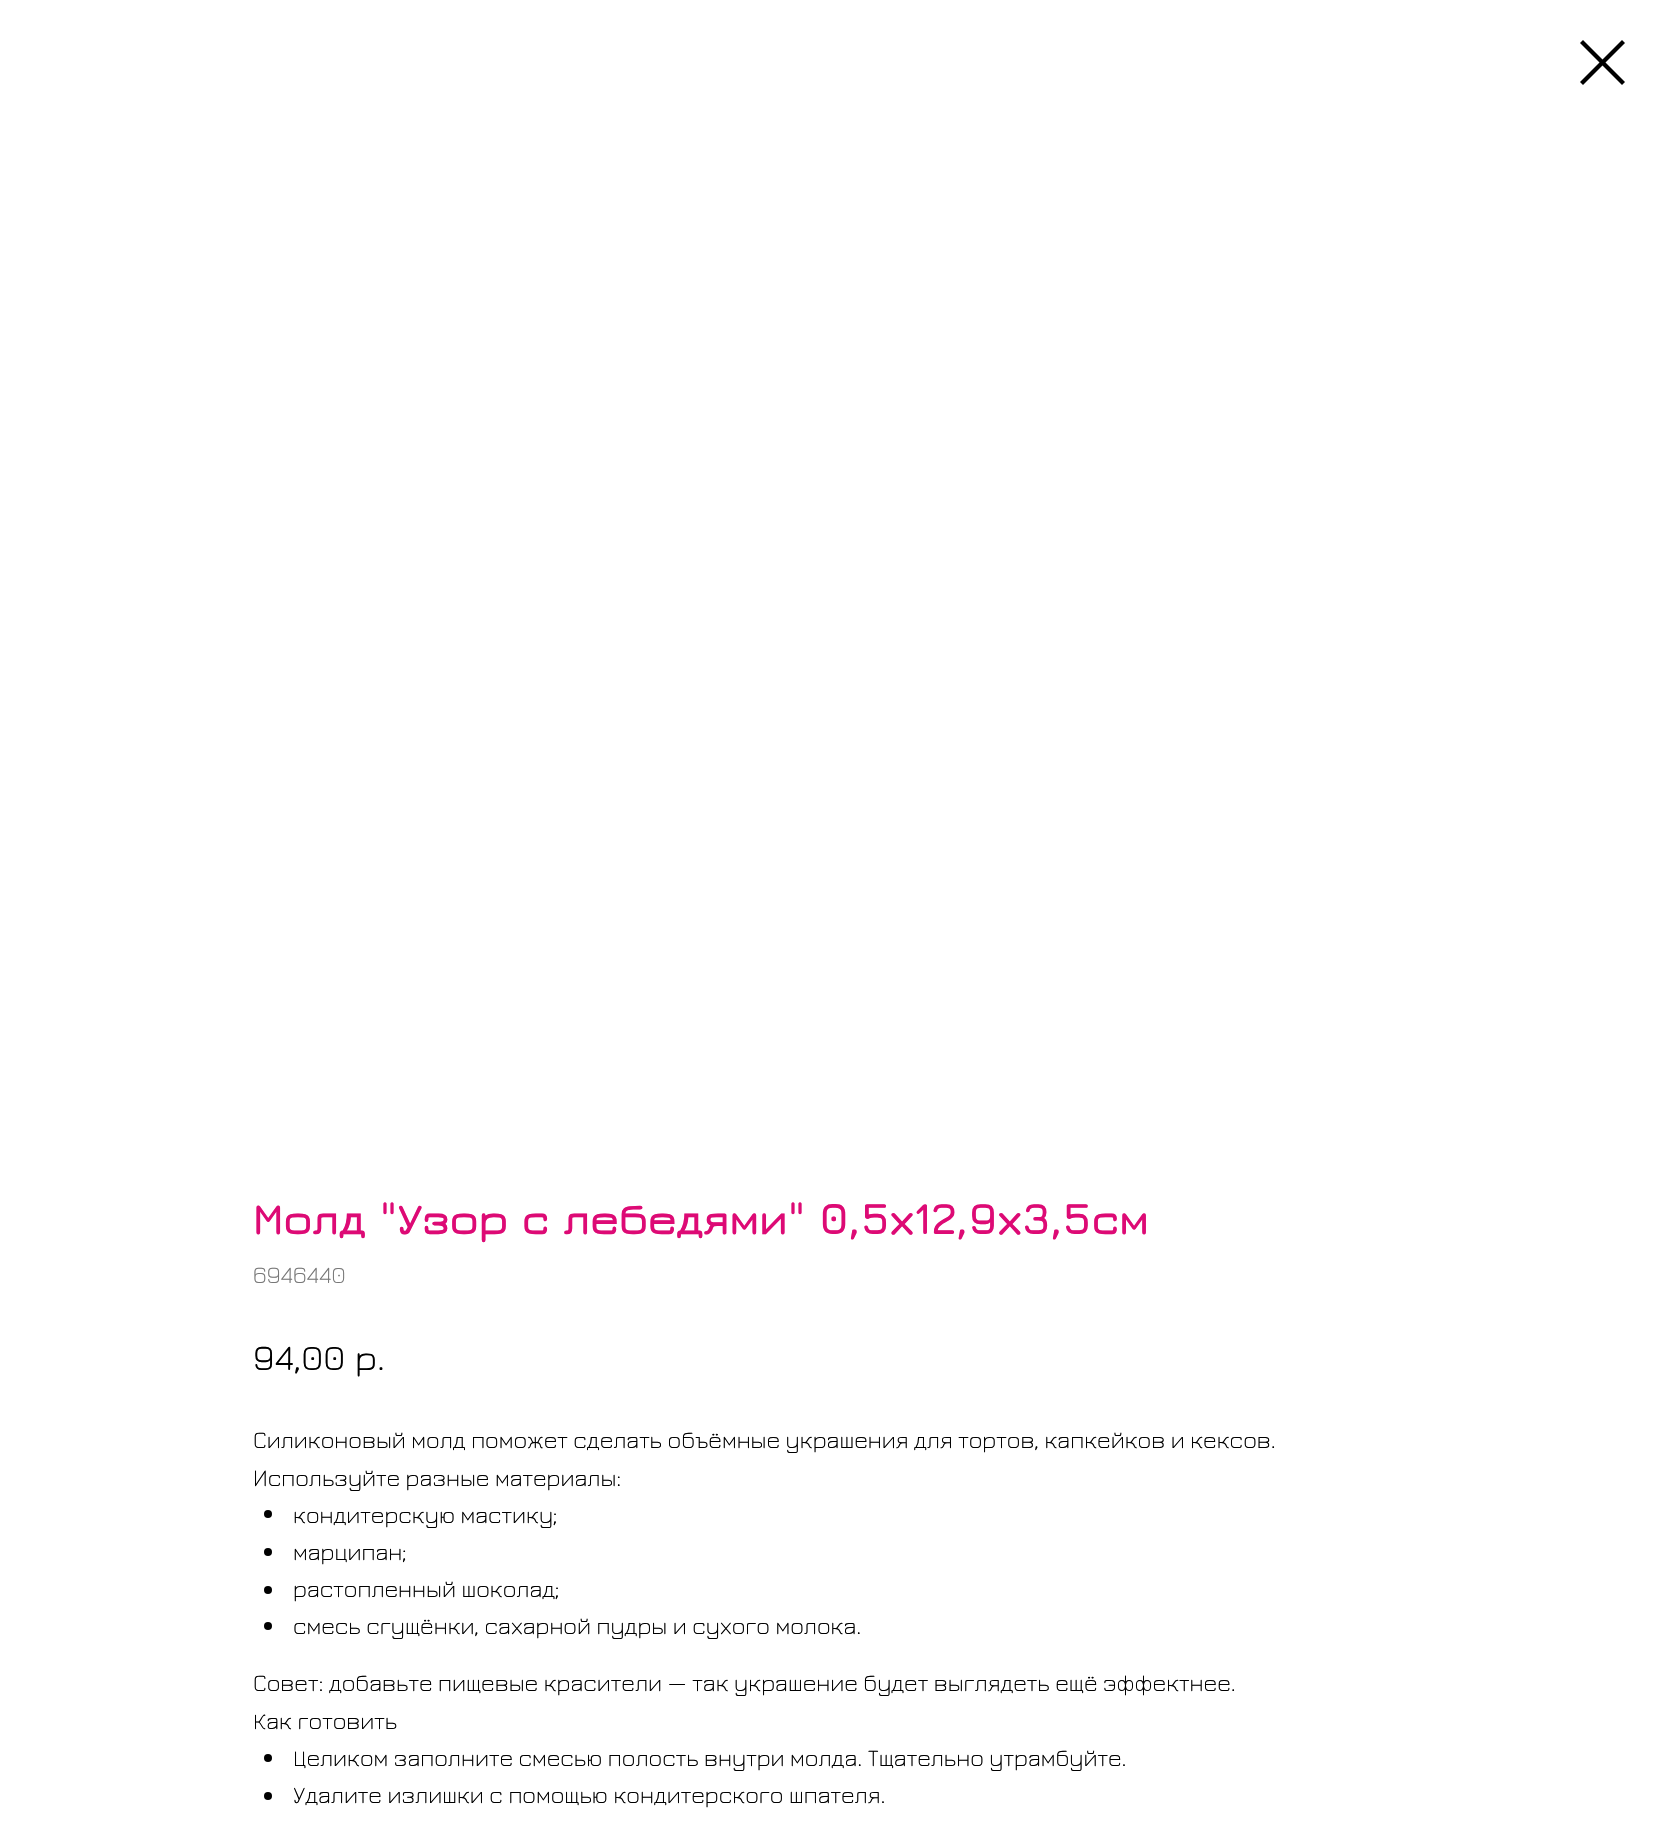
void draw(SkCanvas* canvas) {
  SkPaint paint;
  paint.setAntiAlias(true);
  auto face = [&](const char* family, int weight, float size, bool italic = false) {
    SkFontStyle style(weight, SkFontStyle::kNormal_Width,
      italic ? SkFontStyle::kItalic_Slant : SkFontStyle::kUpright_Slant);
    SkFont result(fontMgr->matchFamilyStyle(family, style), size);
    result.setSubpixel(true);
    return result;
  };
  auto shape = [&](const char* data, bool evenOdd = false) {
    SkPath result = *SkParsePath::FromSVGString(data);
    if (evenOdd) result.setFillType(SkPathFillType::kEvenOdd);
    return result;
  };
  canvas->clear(0xffffffff);
  paint.setColor(0xff000000);
  canvas->drawPath(shape("M1580 43L1583 40L1625 82L1622 85Z", true), paint);
  canvas->drawPath(shape("M1622 40L1625 43L1583 85L1580 82Z", true), paint);
  canvas->drawCircle(268, 1514, 4, paint);
  canvas->drawCircle(268, 1552, 4, paint);
  canvas->drawCircle(268, 1590, 4, paint);
  canvas->drawCircle(268, 1626, 4, paint);
  canvas->drawCircle(268, 1758, 4, paint);
  canvas->drawCircle(268, 1796, 4, paint);
  auto f0 = face("Jura", 700, 44);
  paint.setColor(0xffdd0a75);
  canvas->drawString("Молд \"Узор с лебедями\" 0,5х12,9х3,5см", 253, 1234, f0, paint);
  auto f1 = face("Jura", 300, 24);
  paint.setColor(0xff777777);
  canvas->drawString("6946440", 253, 1283, f1, paint);
  auto f2 = face("Jura", 400, 36);
  paint.setColor(0xff000000);
  canvas->drawString("94,00", 253, 1370, f2, paint);
  canvas->drawString("р.", 355, 1370, f2, paint);
  {
    const struct { const char* s; float x, y; } items[] = {
      {"Силиконовый молд поможет сделать объёмные украшения для тортов, капкейков и кексов.", 253, 1448},
      {"Используйте разные материалы:", 253, 1486},
      {"кондитерскую мастику;", 293, 1523},
      {"марципан;", 293, 1560},
      {"растопленный шоколад;", 293, 1597},
      {"смесь сгущёнки, сахарной пудры и сухого молока.", 293, 1634},
      {"Совет: добавьте пищевые красители — так украшение будет выглядеть ещё эффектнее.", 253, 1691},
      {"Как готовить", 253, 1729},
      {"Целиком заполните смесью полость внутри молда. Тщательно утрамбуйте.", 293, 1766},
      {"Удалите излишки с помощью кондитерского шпателя.", 293, 1803},
    };
    for (auto [s, x, y] : items) {
      canvas->drawString(s, x, y, f1, paint);
    }
  }
}
